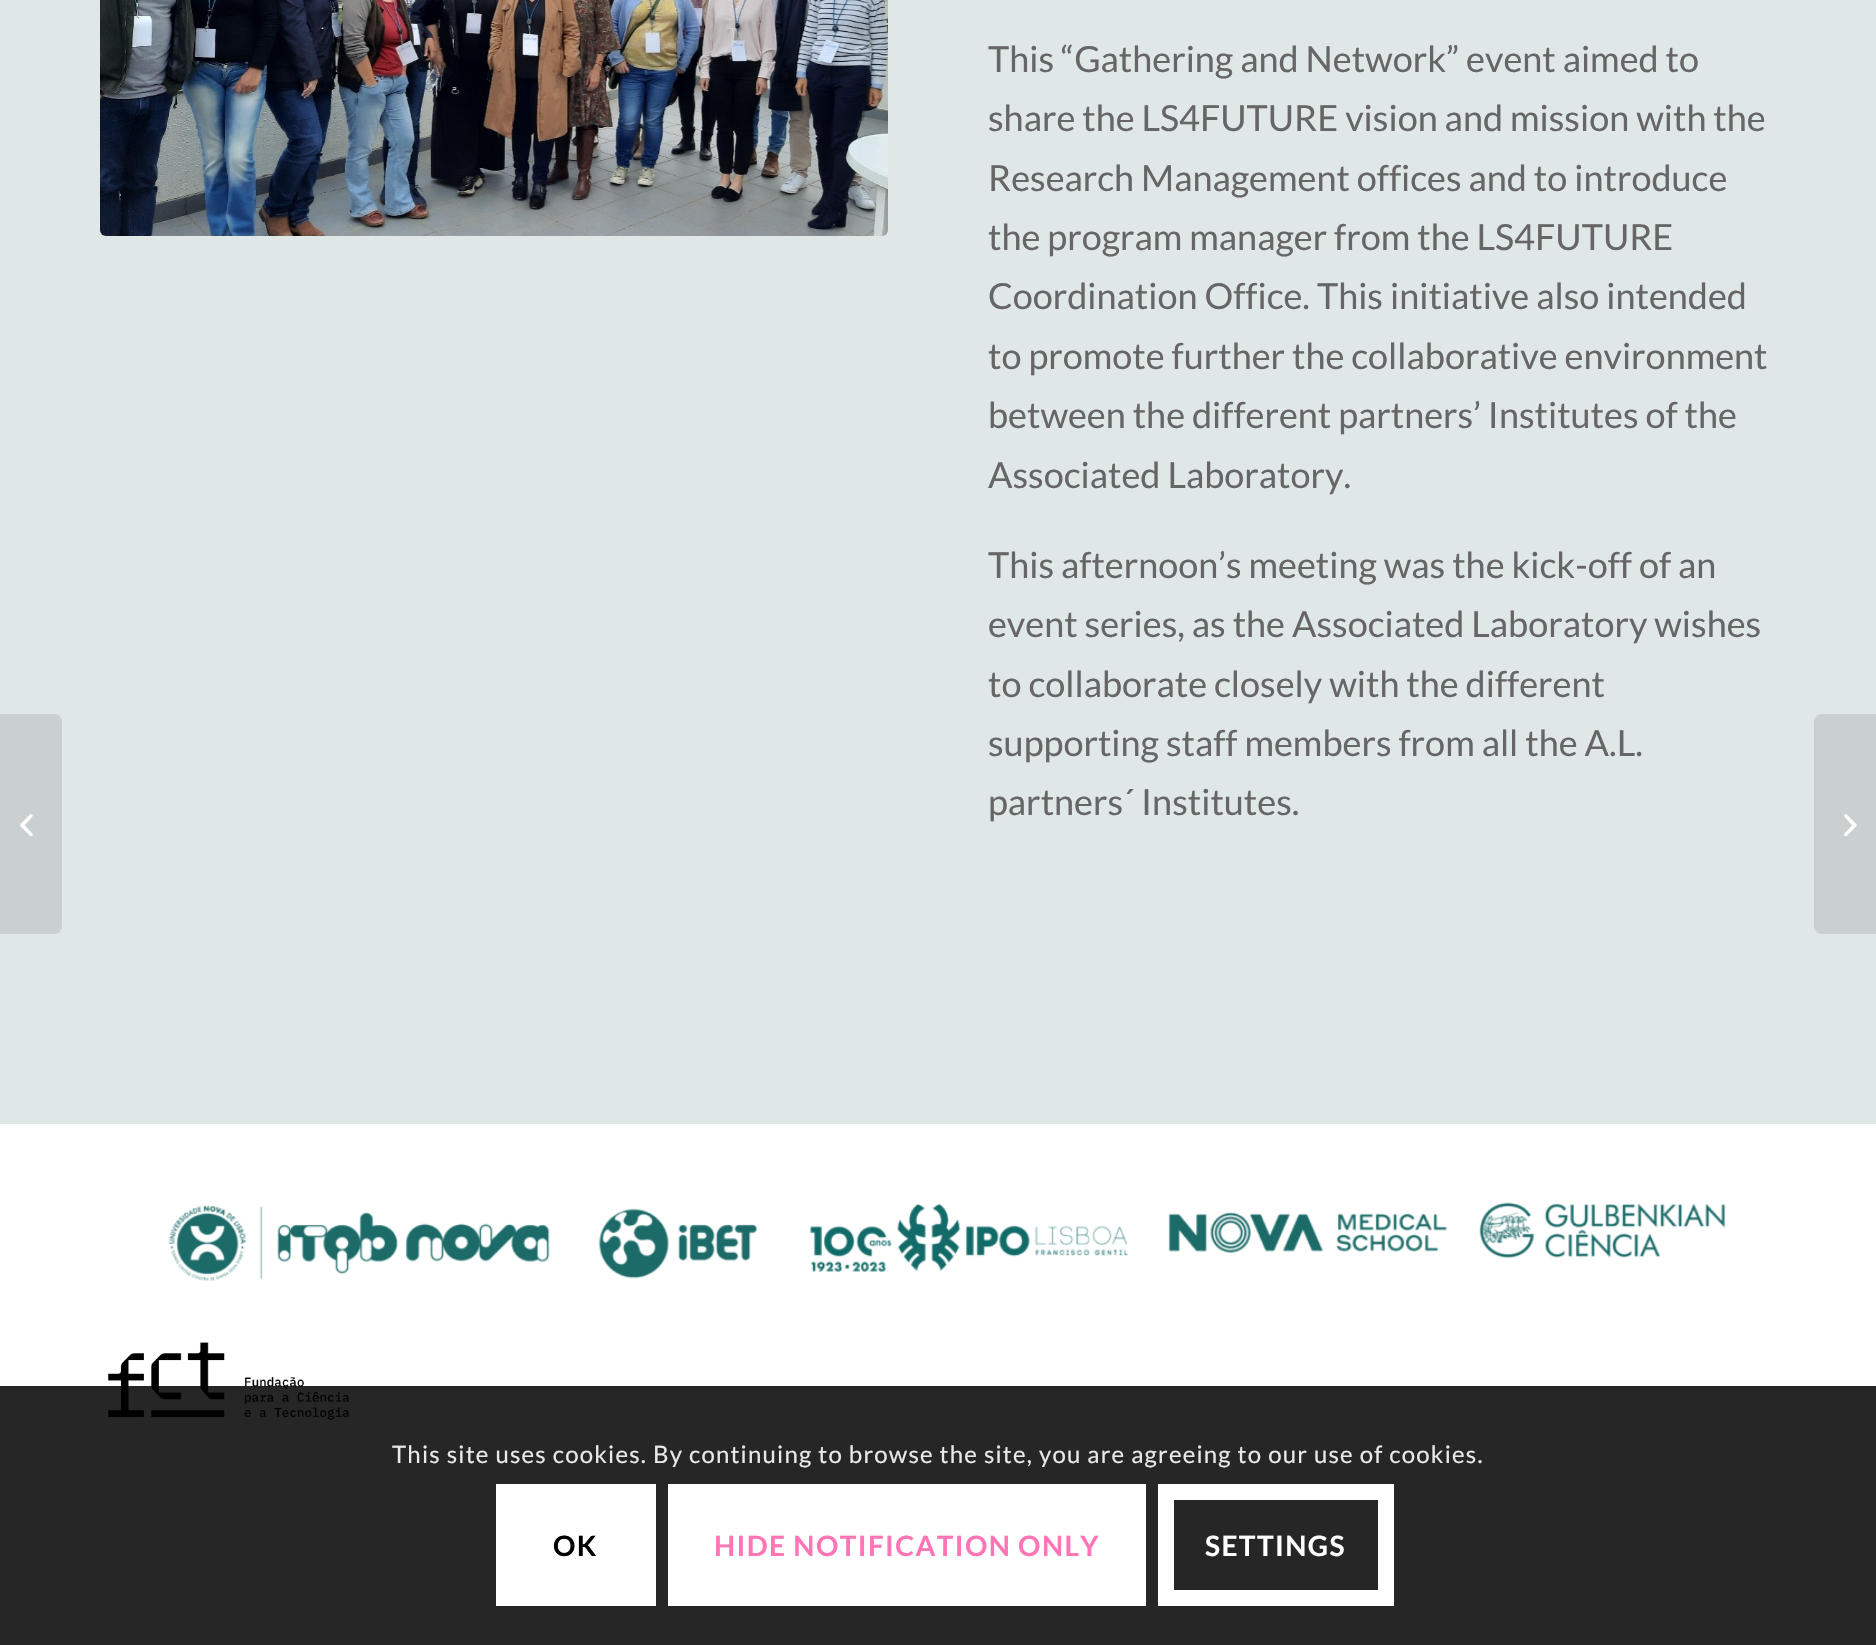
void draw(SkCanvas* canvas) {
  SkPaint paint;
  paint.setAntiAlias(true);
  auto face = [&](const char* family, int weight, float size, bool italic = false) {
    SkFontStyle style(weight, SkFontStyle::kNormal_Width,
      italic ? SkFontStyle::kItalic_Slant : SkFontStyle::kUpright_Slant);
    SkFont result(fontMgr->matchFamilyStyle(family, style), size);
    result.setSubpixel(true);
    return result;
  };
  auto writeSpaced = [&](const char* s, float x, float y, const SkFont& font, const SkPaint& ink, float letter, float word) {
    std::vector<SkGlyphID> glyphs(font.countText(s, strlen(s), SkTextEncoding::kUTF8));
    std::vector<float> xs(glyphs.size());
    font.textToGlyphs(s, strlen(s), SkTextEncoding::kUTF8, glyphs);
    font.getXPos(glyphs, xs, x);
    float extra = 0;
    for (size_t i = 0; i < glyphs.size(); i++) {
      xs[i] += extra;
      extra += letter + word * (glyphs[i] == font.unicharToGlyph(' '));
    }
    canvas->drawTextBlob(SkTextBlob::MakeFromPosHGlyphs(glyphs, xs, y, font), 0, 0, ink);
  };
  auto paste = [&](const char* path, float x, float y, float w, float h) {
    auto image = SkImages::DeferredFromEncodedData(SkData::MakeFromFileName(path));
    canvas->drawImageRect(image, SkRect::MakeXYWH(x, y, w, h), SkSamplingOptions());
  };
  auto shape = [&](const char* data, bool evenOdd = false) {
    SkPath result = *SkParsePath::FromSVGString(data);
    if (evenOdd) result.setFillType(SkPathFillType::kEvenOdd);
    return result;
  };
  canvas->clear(0xffffffff);
  paint.setColor(0xffe0e7e7);
  canvas->drawRect(SkRect::MakeXYWH(0, 0, 1876, 1124), paint);
  paint.setColor(0xffcad0d0);
  canvas->drawPath(shape("M0 714H54C58.5 714 62 717.5 62 722V926C62 930.5 58.5 934 54 934H0Z"), paint);
  paste("img/1.png", 20, 814, 13, 23);
  paste("img/2.png", 100, 0, 788, 236);
  paste("img/3.png", 168, 1202, 1558, 79);
  paste("img/4.png", 108, 1342, 242, 78);
  canvas->drawPath(shape("M1822 714H1876V934H1822C1817.5 934 1814 930.5 1814 926V722C1814 717.5 1817.5 714 1822 714Z"), paint);
  paste("img/5.png", 1844, 814, 13, 23);
  {
    const struct { float x, y, w, h; SkColor color; } items[] = {
      {0, 1386, 1876, 259, 0xd9000000},
      {496, 1484, 160, 122, 0xffffffff},
      {668, 1484, 478, 122, 0xffffffff},
    };
    for (auto [x, y, w, h, color] : items) {
      paint.setColor(color);
      canvas->drawRect(SkRect::MakeXYWH(x, y, w, h), paint);
    }
  }
  paint.setStroke(true);
  paint.setStrokeWidth(16);
  canvas->drawRect(SkRect::MakeXYWH(1166, 1492, 220, 106), paint);
  auto f0 = face("Lato", 400, 36);
  paint.setStroke(false);
  paint.setColor(0xff666666);
  {
    const struct { const char* s; float x, y; } items[] = {
      {"This “Gathering and Network” event aimed to", 988, 72},
      {"share the LS4FUTURE vision and mission with the", 988, 131},
      {"Research Management offices and to introduce", 988, 191},
      {"the program manager from the LS4FUTURE", 988, 250},
      {"Coordination Office. This initiative also intended", 988, 309},
      {"to promote further the collaborative environment", 988, 369},
      {"between the different partners’ Institutes of the", 988, 428},
      {"Associated Laboratory.", 988, 488},
      {"This afternoon’s meeting was the kick-off of an", 988, 578},
      {"event series, as the Associated Laboratory wishes", 988, 637},
      {"to collaborate closely with the different", 988, 697},
      {"supporting staff members from all the A.L.", 988, 756},
      {"partners´ Institutes.", 988, 815},
    };
    for (auto [s, x, y] : items) {
      canvas->drawString(s, x, y, f0, paint);
    }
  }
  auto f1 = face("Lato", 400, 24);
  paint.setColor(0xffe9e9e9);
  writeSpaced("This site uses cookies. By continuing to browse the site, you are agreeing to our use of cookies.", 392, 1463, f1, paint, 1.2f, 0);
  auto f2 = face("Lato", 700, 28);
  paint.setColor(0xff000000);
  writeSpaced("OK", 553, 1556, f2, paint, 1.4f, 0);
  paint.setColor(0xffff75b5);
  writeSpaced("HIDE NOTIFICATION ONLY", 714, 1556, f2, paint, 1.4f, 0);
  paint.setColor(0xffffffff);
  writeSpaced("SETTINGS", 1205, 1556, f2, paint, 1.4f, 0);
}
